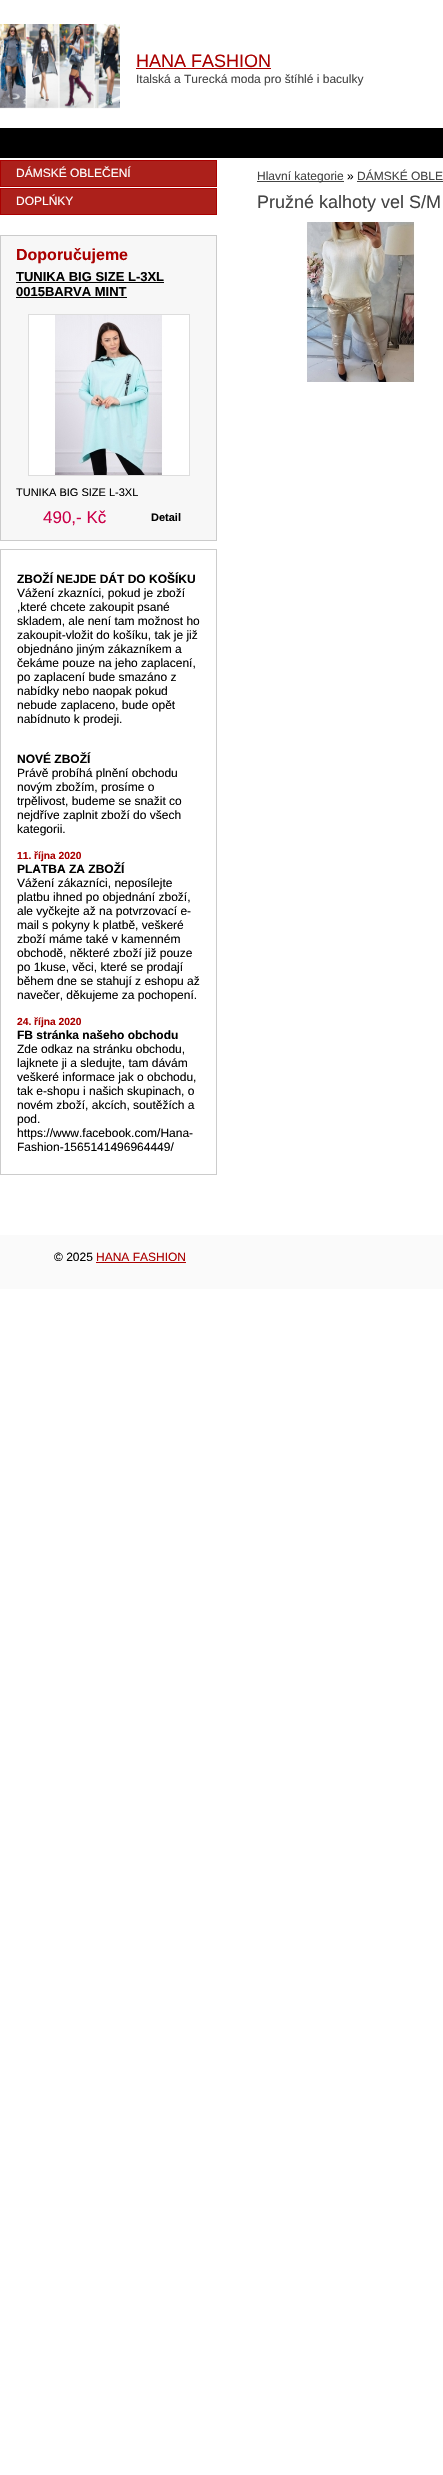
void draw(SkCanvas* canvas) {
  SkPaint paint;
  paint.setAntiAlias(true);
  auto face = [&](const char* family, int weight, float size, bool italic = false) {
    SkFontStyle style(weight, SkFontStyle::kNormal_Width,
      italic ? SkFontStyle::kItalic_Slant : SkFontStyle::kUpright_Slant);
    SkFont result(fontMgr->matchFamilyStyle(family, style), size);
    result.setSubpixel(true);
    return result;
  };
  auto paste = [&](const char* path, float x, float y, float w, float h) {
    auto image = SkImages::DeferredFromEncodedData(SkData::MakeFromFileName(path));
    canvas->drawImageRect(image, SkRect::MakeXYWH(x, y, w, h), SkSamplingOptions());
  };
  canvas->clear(0xffffffff);
  paste("img/1.png", 0, 24, 120, 85);
  paint.setColor(0xffaa0000);
  canvas->drawRect(SkRect::MakeXYWH(136, 68, 135, 1), paint);
  paint.setColor(0xff000000);
  canvas->drawRect(SkRect::MakeXYWH(0, 128, 443, 30), paint);
  paint.setColor(0xffac201b);
  canvas->drawRect(SkRect::MakeXYWH(0.5f, 160.5f, 216, 26), paint);
  paint.setStroke(true);
  paint.setStrokeWidth(1);
  paint.setColor(0xffaa0000);
  canvas->drawRect(SkRect::MakeXYWH(0.5f, 160.5f, 216, 26), paint);
  paint.setStroke(false);
  paint.setColor(0xffac201b);
  canvas->drawRect(SkRect::MakeXYWH(0.5f, 188.5f, 216, 26), paint);
  paint.setStroke(true);
  paint.setColor(0xffaa0000);
  canvas->drawRect(SkRect::MakeXYWH(0.5f, 188.5f, 216, 26), paint);
  paint.setStroke(false);
  paint.setColor(0xfff7f7f7);
  canvas->drawRect(SkRect::MakeXYWH(0.5f, 235.5f, 216, 305), paint);
  paint.setStroke(true);
  paint.setColor(0xffcbcbcb);
  canvas->drawRect(SkRect::MakeXYWH(0.5f, 235.5f, 216, 305), paint);
  paint.setStroke(false);
  paint.setColor(0xff000000);
  canvas->drawRect(SkRect::MakeXYWH(16, 282, 148, 1), paint);
  canvas->drawRect(SkRect::MakeXYWH(16, 297, 111, 1), paint);
  paint.setStroke(true);
  paint.setColor(0xffdddddd);
  canvas->drawRect(SkRect::MakeXYWH(28.5f, 314.5f, 161, 161), paint);
  paste("img/2.png", 29, 315, 160, 160);
  paint.setColor(0xffcccccc);
  canvas->drawRect(SkRect::MakeXYWH(0.5f, 549.5f, 216, 625), paint);
  paint.setStroke(false);
  paint.setColor(0xff444444);
  canvas->drawRect(SkRect::MakeXYWH(257, 181, 87, 1), paint);
  canvas->drawRect(SkRect::MakeXYWH(357, 181, 86, 1), paint);
  paste("img/3.png", 306, 222, 109, 160);
  paint.setColor(0xfffafafa);
  canvas->drawRect(SkRect::MakeXYWH(0, 1235, 443, 54), paint);
  paint.setColor(0xffaa0000);
  canvas->drawRect(SkRect::MakeXYWH(96, 1262, 90, 1), paint);
  auto f0 = face("Liberation Sans", 400, 18);
  canvas->drawString("HANA FASHION", 136, 67, f0, paint);
  auto f1 = face("Liberation Sans", 400, 12);
  paint.setColor(0xff444444);
  canvas->drawString("Italská a Turecká moda pro štíhlé i baculky", 136, 83, f1, paint);
  paint.setColor(0xffffffff);
  canvas->drawString("DÁMSKÉ OBLEČENÍ", 16, 177, f1, paint);
  canvas->drawString("DOPLŃKY", 16, 205, f1, paint);
  auto f2 = face("Liberation Sans", 700, 16);
  paint.setColor(0xffaa0000);
  canvas->drawString("Doporučujeme", 16, 260, f2, paint);
  auto f3 = face("Liberation Sans", 700, 13);
  paint.setColor(0xff000000);
  canvas->drawString("TUNIKA BIG SIZE L-3XL", 16, 281, f3, paint);
  canvas->drawString("0015BARVA MINT", 16, 296, f3, paint);
  auto f4 = face("Liberation Sans", 400, 11);
  canvas->drawString("TUNIKA BIG SIZE L-3XL", 16, 496, f4, paint);
  auto f5 = face("Liberation Sans", 400, 17);
  paint.setColor(0xffcb0049);
  canvas->drawString("490,- Kč", 43, 523, f5, paint);
  auto f6 = face("Liberation Sans", 700, 11);
  paint.setColor(0xff000000);
  canvas->drawString("Detail", 151, 521, f6, paint);
  auto f7 = face("Liberation Sans", 700, 12);
  canvas->drawString("ZBOŽÍ NEJDE DÁT DO KOŠÍKU", 17, 583, f7, paint);
  {
    const struct { const char* s; float x, y; } items[] = {
      {"Vážení zkazníci, pokud je zboží", 17, 597},
      {",které chcete zakoupit psané", 17, 611},
      {"skladem, ale není tam možnost ho", 17, 625},
      {"zakoupit-vložit do košíku, tak je již", 17, 639},
      {"objednáno jiným zákazníkem a", 17, 653},
      {"čekáme pouze na jeho zaplacení,", 17, 667},
      {"po zaplacení bude smazáno z", 17, 681},
      {"nabídky nebo naopak pokud", 17, 695},
      {"nebude zaplaceno, bude opět", 17, 709},
      {"nabídnuto k prodeji.", 17, 723},
    };
    for (auto [s, x, y] : items) {
      canvas->drawString(s, x, y, f1, paint);
    }
  }
  canvas->drawString("NOVÉ ZBOŽÍ", 17, 763, f7, paint);
  {
    const struct { const char* s; float x, y; } items[] = {
      {"Právě probíhá plnění obchodu", 17, 777},
      {"novým zbožím, prosíme o", 17, 791},
      {"trpělivost, budeme se snažit co", 17, 805},
      {"nejdříve zaplnit zboží do všech", 17, 819},
      {"kategorii.", 17, 833},
    };
    for (auto [s, x, y] : items) {
      canvas->drawString(s, x, y, f1, paint);
    }
  }
  auto f8 = face("Liberation Sans", 700, 10.25f);
  paint.setColor(0xffaa0000);
  canvas->drawString("11. října 2020", 17, 859, f8, paint);
  paint.setColor(0xff000000);
  canvas->drawString("PLATBA ZA ZBOŽÍ", 17, 873, f7, paint);
  {
    const struct { const char* s; float x, y; } items[] = {
      {"Vážení zákazníci, neposílejte", 17, 887},
      {"platbu ihned po objednání zboží,", 17, 901},
      {"ale vyčkejte až na potvrzovací e-", 17, 915},
      {"mail s pokyny k platbě, veškeré", 17, 929},
      {"zboží máme také v kamenném", 17, 943},
      {"obchodě, některé zboží již pouze", 17, 957},
      {"po 1kuse, věci, které se prodají", 17, 971},
      {"během dne se stahují z eshopu až", 17, 985},
      {"navečer, děkujeme za pochopení.", 17, 999},
    };
    for (auto [s, x, y] : items) {
      canvas->drawString(s, x, y, f1, paint);
    }
  }
  paint.setColor(0xffaa0000);
  canvas->drawString("24. října 2020", 17, 1025, f8, paint);
  paint.setColor(0xff000000);
  canvas->drawString("FB stránka našeho obchodu", 17, 1039, f7, paint);
  {
    const struct { const char* s; float x, y; } items[] = {
      {"Zde odkaz na stránku obchodu,", 17, 1053},
      {"lajknete ji a sledujte, tam dávám", 17, 1067},
      {"veškeré informace jak o obchodu,", 17, 1081},
      {"tak e-shopu i našich skupinach, o", 17, 1095},
      {"novém zboží, akcích, soutěžích a", 17, 1109},
      {"pod.", 17, 1123},
      {"https://www.facebook.com/Hana-", 17, 1137},
      {"Fashion-1565141496964449/", 17, 1151},
    };
    for (auto [s, x, y] : items) {
      canvas->drawString(s, x, y, f1, paint);
    }
  }
  paint.setColor(0xff444444);
  canvas->drawString("Hlavní kategorie", 257, 180, f1, paint);
  paint.setColor(0xff000000);
  canvas->drawString("»", 347, 180, f1, paint);
  paint.setColor(0xff444444);
  canvas->drawString("DÁMSKÉ OBLE", 357, 180, f1, paint);
  canvas->drawString("Pružné kalhoty vel S/M", 257, 208, f0, paint);
  paint.setColor(0xff000000);
  canvas->drawString("© 2025", 54, 1261, f1, paint);
  paint.setColor(0xffaa0000);
  canvas->drawString("HANA FASHION", 96, 1261, f1, paint);
}
